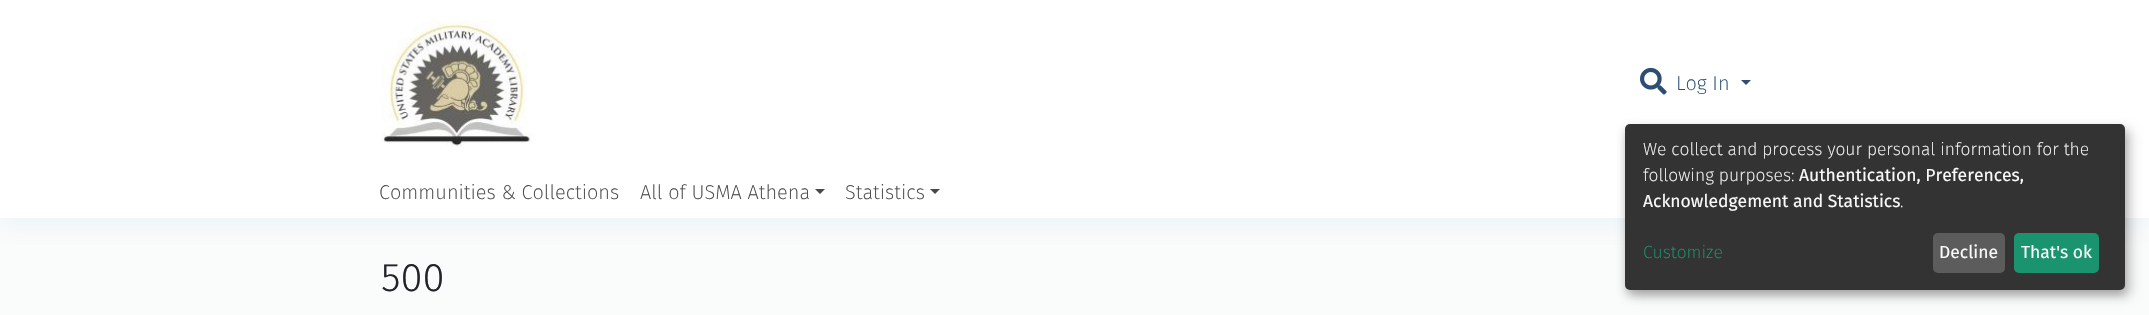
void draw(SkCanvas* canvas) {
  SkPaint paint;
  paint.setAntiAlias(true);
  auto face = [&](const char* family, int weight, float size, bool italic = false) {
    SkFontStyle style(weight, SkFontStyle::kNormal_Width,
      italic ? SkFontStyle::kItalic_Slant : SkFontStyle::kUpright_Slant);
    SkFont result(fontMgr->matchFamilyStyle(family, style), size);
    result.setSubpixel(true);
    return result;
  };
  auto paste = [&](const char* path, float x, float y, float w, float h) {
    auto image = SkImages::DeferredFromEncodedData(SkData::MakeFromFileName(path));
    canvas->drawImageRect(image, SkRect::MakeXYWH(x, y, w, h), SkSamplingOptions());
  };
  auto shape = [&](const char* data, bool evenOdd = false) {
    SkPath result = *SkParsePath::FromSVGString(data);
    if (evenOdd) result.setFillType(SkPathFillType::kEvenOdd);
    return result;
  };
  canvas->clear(0xfffafbfb);
  paint.setColor(0x1463b3de);
  paint.setMaskFilter(SkMaskFilter::MakeBlur(kNormal_SkBlurStyle, 10));
  canvas->drawRect(SkRect::MakeXYWH(0, 10, 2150, 218), paint);
  paint.setMaskFilter(nullptr);
  paint.setColor(0xffffffff);
  canvas->drawRect(SkRect::MakeXYWH(0, 0, 2149, 218), paint);
  paste("img/1.png", 381, 21, 152, 125);
  paste("img/2.png", 1640, 67, 27, 28);
  paint.setColor(0xff2b4e72);
  canvas->drawPath(shape("M1741 80H1751L1746 85Z"), paint);
  paint.setColor(0xff484848);
  canvas->drawPath(shape("M815 189H825L820 194Z"), paint);
  canvas->drawPath(shape("M930 189H940L935 194Z"), paint);
  paint.setColor(0x30000000);
  paint.setMaskFilter(SkMaskFilter::MakeBlur(kNormal_SkBlurStyle, 6));
  canvas->drawRoundRect(SkRect::MakeXYWH(1631, 130, 500, 166), 5, 5, paint);
  paint.setMaskFilter(nullptr);
  paint.setColor(0x33000000);
  paint.setMaskFilter(SkMaskFilter::MakeBlur(kNormal_SkBlurStyle, 4));
  canvas->drawRoundRect(SkRect::MakeXYWH(1625, 129, 500, 166), 5, 5, paint);
  paint.setMaskFilter(nullptr);
  paint.setColor(0xff333333);
  canvas->drawRoundRect(SkRect::MakeXYWH(1625, 124, 500, 166), 5, 5, paint);
  paint.setColor(0xff5c5c5c);
  canvas->drawRoundRect(SkRect::MakeXYWH(1933, 233, 72, 40), 5, 5, paint);
  paint.setColor(0xff1a936f);
  canvas->drawRoundRect(SkRect::MakeXYWH(2014, 233, 85, 40), 5, 5, paint);
  auto f0 = face("Fira Sans", 200, 20);
  paint.setColor(0xff2b4e72);
  canvas->drawString("Log In", 1676, 90, f0, paint);
  paint.setColor(0xff484848);
  {
    const struct { const char* s; float x, y; } items[] = {
      {"Communities & Collections", 379, 199},
      {"All of USMA Athena", 640, 199},
      {"Statistics", 845, 199},
    };
    for (auto [s, x, y] : items) {
      canvas->drawString(s, x, y, f0, paint);
    }
  }
  auto f1 = face("Fira Sans", 300, 40);
  paint.setColor(0xff212529);
  canvas->drawString("500", 381, 291, f1, paint);
  auto f2 = face("Fira Sans", 200, 17.5f);
  paint.setColor(0xfffafafa);
  canvas->drawString("We collect and process your personal information for the", 1643, 155, f2, paint);
  canvas->drawString("following purposes:", 1643, 181, f2, paint);
  auto f3 = face("Fira Sans", 400, 17.5f);
  canvas->drawString("Authentication, Preferences,", 1799, 181, f3, paint);
  canvas->drawString("Acknowledgement and Statistics", 1643, 207, f3, paint);
  canvas->drawString(".", 1900, 207, f2, paint);
  paint.setColor(0xff1a936f);
  canvas->drawString("Customize", 1643, 258, f2, paint);
  paint.setColor(0xfffafafa);
  canvas->drawString("Decline", 1939, 258, f3, paint);
  canvas->drawString("That's ok", 2021, 258, f3, paint);
}
